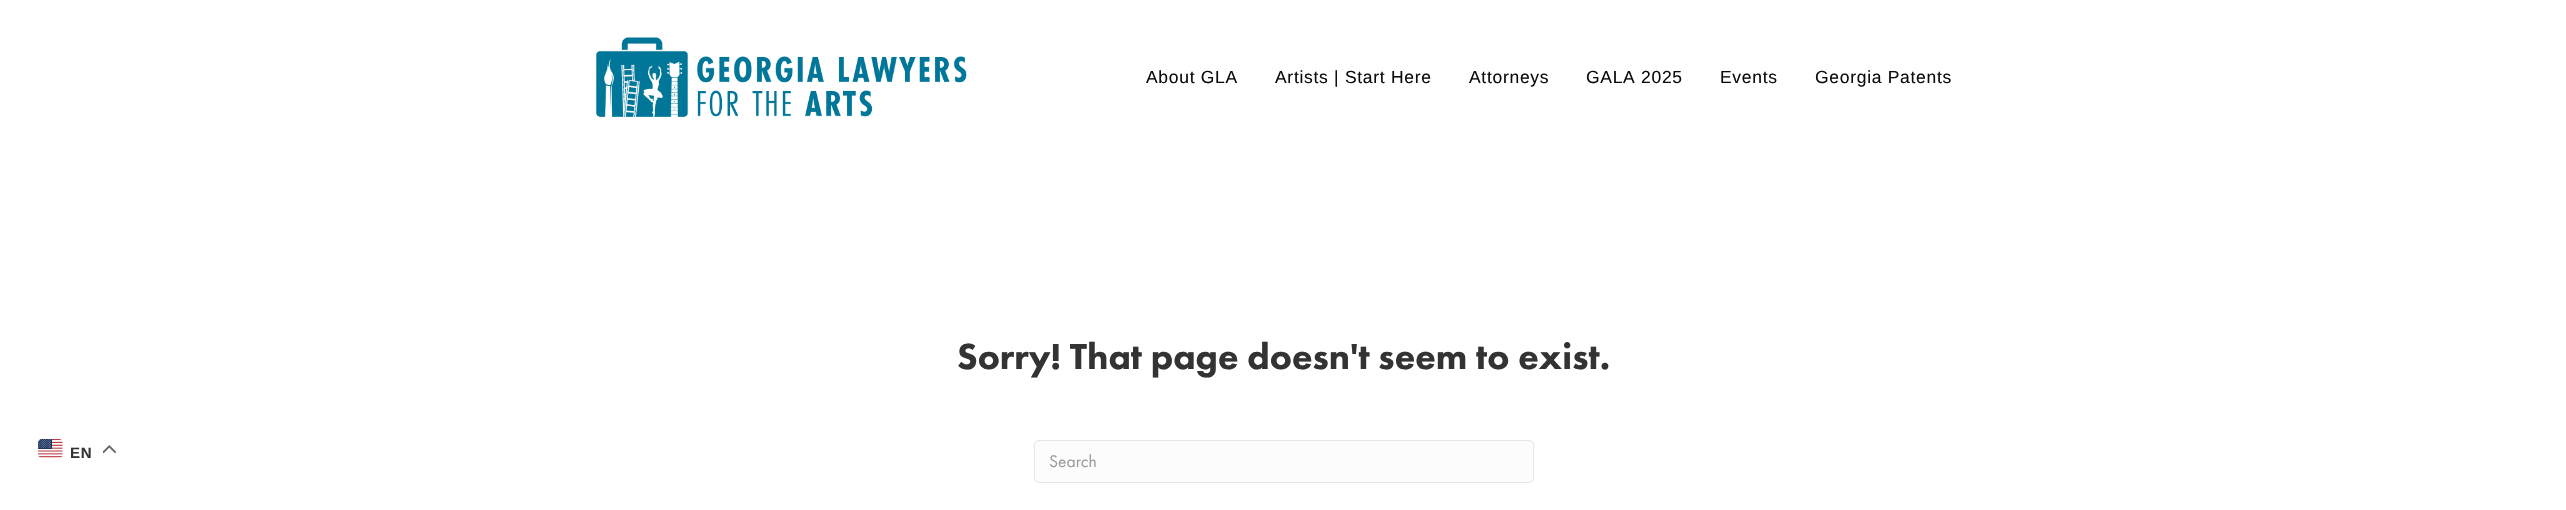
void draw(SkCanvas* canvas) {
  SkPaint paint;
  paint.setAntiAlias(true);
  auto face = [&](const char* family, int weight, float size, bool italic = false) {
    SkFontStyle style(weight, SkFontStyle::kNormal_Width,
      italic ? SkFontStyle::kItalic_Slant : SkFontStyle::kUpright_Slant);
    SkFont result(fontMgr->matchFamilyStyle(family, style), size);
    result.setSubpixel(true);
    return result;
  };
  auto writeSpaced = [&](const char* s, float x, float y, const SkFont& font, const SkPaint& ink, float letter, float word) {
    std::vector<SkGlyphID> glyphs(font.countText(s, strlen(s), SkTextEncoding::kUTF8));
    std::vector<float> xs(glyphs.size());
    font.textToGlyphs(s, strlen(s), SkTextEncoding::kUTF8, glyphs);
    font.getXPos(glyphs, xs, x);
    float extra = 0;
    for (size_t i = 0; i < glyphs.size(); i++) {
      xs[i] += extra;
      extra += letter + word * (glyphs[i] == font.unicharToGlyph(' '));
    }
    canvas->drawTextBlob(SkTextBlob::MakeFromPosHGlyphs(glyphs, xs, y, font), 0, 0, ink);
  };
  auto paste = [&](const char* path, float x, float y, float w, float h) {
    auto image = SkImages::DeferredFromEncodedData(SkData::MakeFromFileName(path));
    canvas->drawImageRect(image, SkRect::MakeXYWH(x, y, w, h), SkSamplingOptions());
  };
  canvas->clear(0xffffffff);
  paste("img/1.png", 38, 439, 25, 19);
  paste("img/2.png", 103, 445, 13, 9);
  paste("img/3.png", 596, 37, 371, 80);
  paint.setColor(0xfffcfcfc);
  canvas->drawRoundRect(SkRect::MakeXYWH(1034.5f, 440.5f, 499, 42), 4.5f, 4.5f, paint);
  paint.setStroke(true);
  paint.setStrokeWidth(1);
  paint.setColor(0xffe6e6e6);
  canvas->drawRoundRect(SkRect::MakeXYWH(1034.5f, 440.5f, 499, 42), 4.5f, 4.5f, paint);
  auto f0 = face("Liberation Sans", 700, 15);
  paint.setStroke(false);
  paint.setColor(0xff333333);
  writeSpaced("EN", 70, 458, f0, paint, 0.7f, 0);
  auto f1 = face("Liberation Sans", 400, 17.5f);
  paint.setColor(0xff0c0c0c);
  {
    const struct { const char* s; float x, y; } items[] = {
      {"About GLA", 1146, 83},
      {"Artists | Start Here", 1275, 83},
      {"Attorneys", 1469, 83},
      {"GALA 2025", 1586, 83},
      {"Events", 1720, 83},
      {"Georgia Patents", 1815, 83},
    };
    for (auto [s, x, y] : items) {
      writeSpaced(s, x, y, f1, paint, 0.7f, 0);
    }
  }
  auto f2 = face("Futura PT", 900, 37.5f);
  paint.setColor(0xff333333);
  canvas->drawString("Sorry! That page doesn't seem to exist.", 957, 369, f2, paint);
  auto f3 = face("Futura PT", 400, 17.5f);
  paint.setColor(0xff9c9c9c);
  canvas->drawString("Search", 1049, 467, f3, paint);
}
